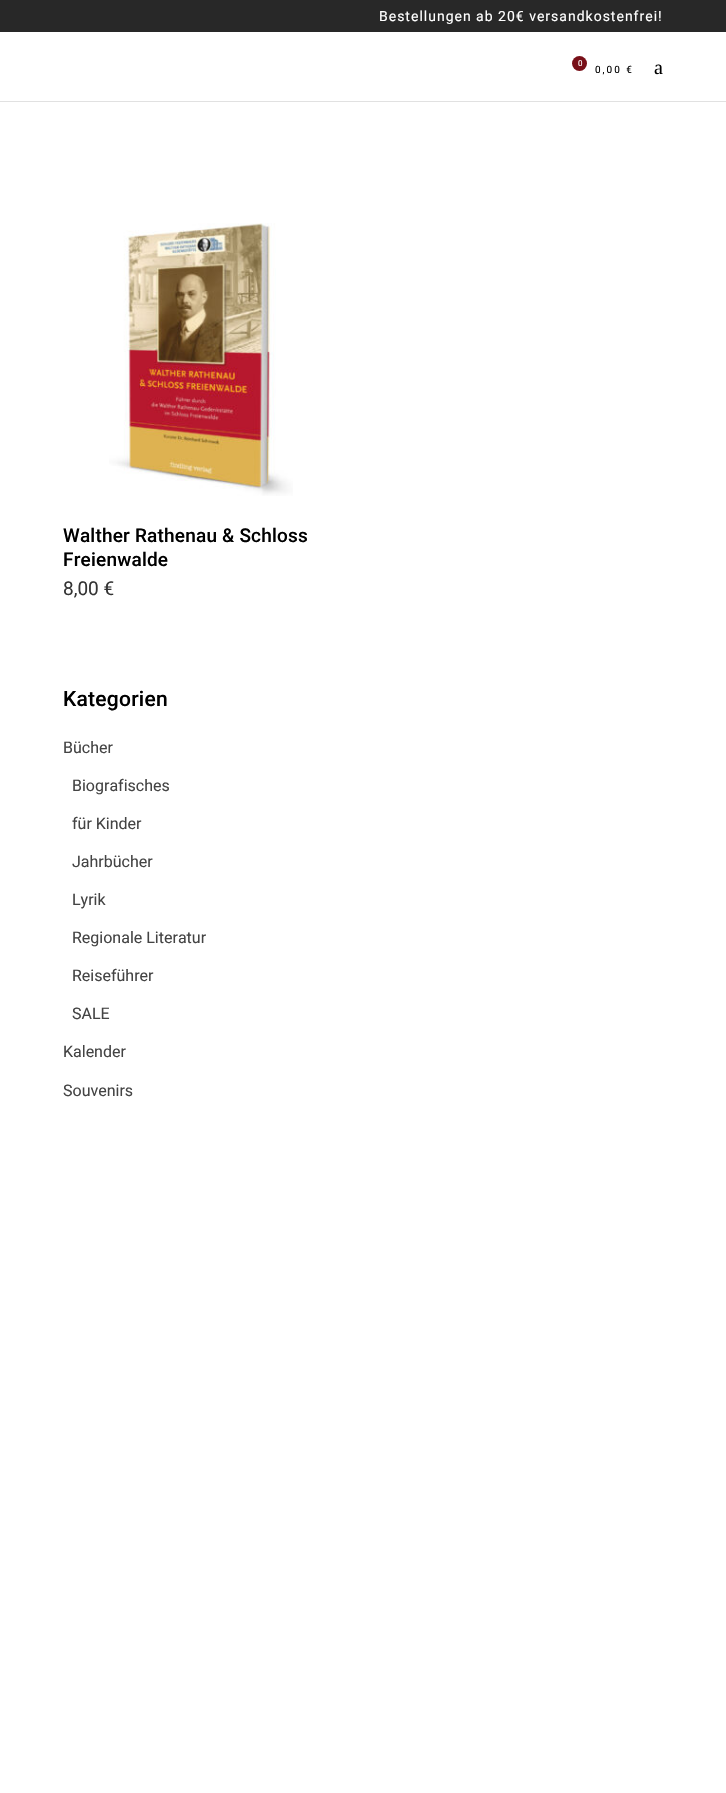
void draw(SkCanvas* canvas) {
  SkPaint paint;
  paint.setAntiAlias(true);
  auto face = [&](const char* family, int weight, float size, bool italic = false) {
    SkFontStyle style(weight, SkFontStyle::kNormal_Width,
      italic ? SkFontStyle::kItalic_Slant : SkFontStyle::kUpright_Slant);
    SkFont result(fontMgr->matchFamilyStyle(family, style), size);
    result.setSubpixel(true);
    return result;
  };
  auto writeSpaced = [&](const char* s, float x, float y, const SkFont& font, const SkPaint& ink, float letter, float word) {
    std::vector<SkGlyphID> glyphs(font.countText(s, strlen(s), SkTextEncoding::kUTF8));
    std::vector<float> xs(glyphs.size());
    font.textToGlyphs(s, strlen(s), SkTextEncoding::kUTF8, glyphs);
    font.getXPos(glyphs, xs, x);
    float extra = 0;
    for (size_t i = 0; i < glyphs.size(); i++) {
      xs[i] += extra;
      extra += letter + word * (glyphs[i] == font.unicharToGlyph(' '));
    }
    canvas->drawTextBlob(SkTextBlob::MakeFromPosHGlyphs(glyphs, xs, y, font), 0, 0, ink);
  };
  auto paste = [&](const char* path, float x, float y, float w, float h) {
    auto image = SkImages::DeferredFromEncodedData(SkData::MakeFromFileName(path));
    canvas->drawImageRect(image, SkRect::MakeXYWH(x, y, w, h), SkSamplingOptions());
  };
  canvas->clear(0xffffffff);
  paint.setColor(0xff282828);
  canvas->drawRect(SkRect::MakeXYWH(0, 0, 726, 32), paint);
  paint.setColor(0xffe1e1e1);
  canvas->drawRect(SkRect::MakeXYWH(0, 101, 726, 1), paint);
  paint.setColor(0xff780f18);
  canvas->drawCircle(579.5f, 63.5f, 7.5f, paint);
  paste("img/1.png", 109, 223, 184, 273);
  auto f0 = face("Roboto", 400, 14);
  paint.setColor(0xffffffff);
  writeSpaced("Bestellungen ab 20€ versandkostenfrei!", 379, 21, f0, paint, 1, 0);
  auto f1 = face("Roboto", 400, 8);
  canvas->drawString("0", 578, 66, f1, paint);
  auto f2 = face("Roboto", 400, 10);
  paint.setColor(0xff000000);
  writeSpaced("0,00 €", 595, 73, f2, paint, 2, 0);
  auto f3 = face("Liberation Serif", 400, 20);
  canvas->drawString("a", 654, 74, f3, paint);
  auto f4 = face("Roboto", 500, 19);
  writeSpaced("Walther Rathenau & Schloss", 63, 542, f4, paint, 0.2f, 0);
  writeSpaced("Freienwalde", 63, 566, f4, paint, 0.2f, 0);
  auto f5 = face("Roboto", 400, 19);
  paint.setColor(0xff343434);
  canvas->drawString("8,00 €", 63, 595, f5, paint);
  auto f6 = face("Roboto", 500, 21);
  paint.setColor(0xff000000);
  writeSpaced("Kategorien", 63, 706, f6, paint, 0.25f, 0);
  auto f7 = face("Roboto", 400, 16);
  paint.setColor(0xff444444);
  {
    const struct { const char* s; float x, y; } items[] = {
      {"Bücher", 63, 753},
      {"Biografisches", 72, 791},
      {"für Kinder", 72, 829},
      {"Jahrbücher", 72, 867},
      {"Lyrik", 72, 905},
      {"Regionale Literatur", 72, 943},
      {"Reiseführer", 72, 981},
      {"SALE", 72, 1019},
      {"Kalender", 63, 1057},
      {"Souvenirs", 63, 1096},
    };
    for (auto [s, x, y] : items) {
      canvas->drawString(s, x, y, f7, paint);
    }
  }
}
